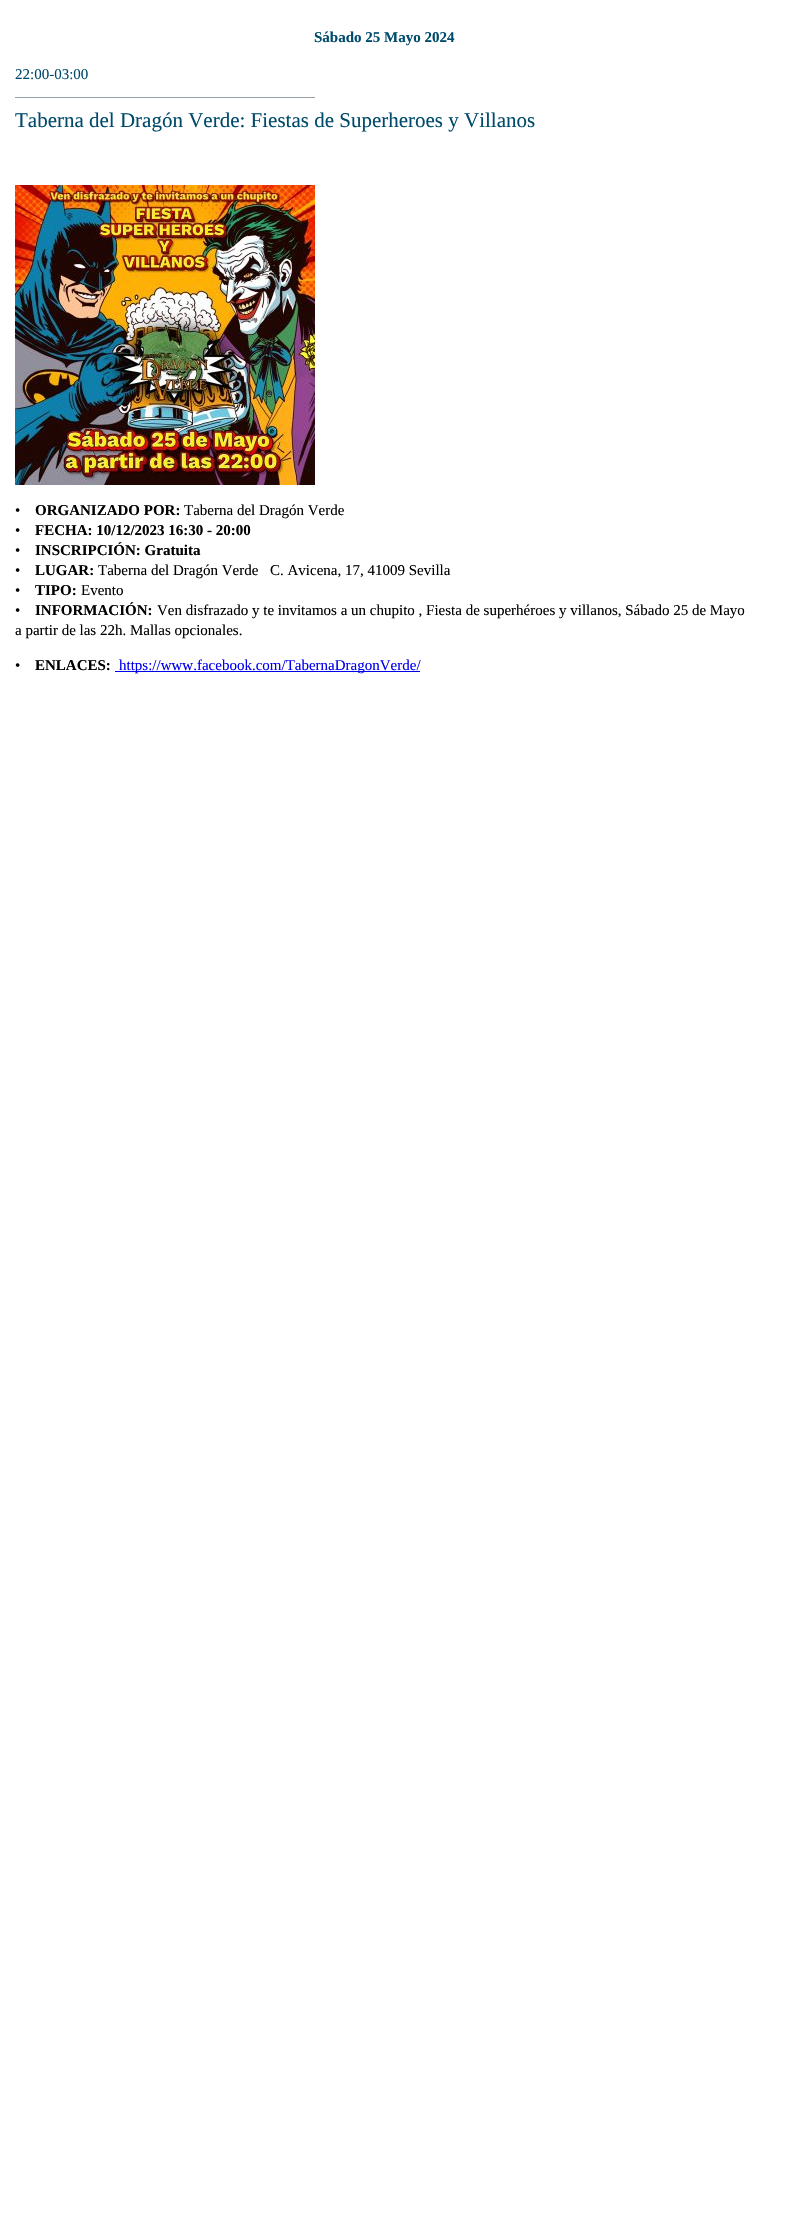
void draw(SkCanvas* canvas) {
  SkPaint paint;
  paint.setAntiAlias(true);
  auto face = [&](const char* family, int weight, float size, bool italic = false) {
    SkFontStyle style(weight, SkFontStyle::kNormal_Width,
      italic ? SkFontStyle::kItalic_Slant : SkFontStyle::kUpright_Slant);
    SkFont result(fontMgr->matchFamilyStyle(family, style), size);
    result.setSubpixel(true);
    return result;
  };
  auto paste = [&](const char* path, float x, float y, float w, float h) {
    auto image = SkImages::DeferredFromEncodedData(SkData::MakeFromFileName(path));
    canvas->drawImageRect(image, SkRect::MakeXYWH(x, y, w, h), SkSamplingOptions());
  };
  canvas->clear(0xffffffff);
  paint.setColor(0xff97a0a6);
  canvas->drawRect(SkRect::MakeXYWH(15, 97, 300, 1), paint);
  paste("img/1.png", 15, 185, 300, 300);
  paint.setColor(0xff0000ee);
  canvas->drawRect(SkRect::MakeXYWH(115, 671, 305, 1), paint);
  auto f0 = face("Liberation Serif", 700, 15);
  paint.setColor(0xff004b6c);
  canvas->drawString("Sábado 25 Mayo 2024", 314, 42, f0, paint);
  auto f1 = face("Liberation Serif", 400, 15);
  canvas->drawString("22:00-03:00", 15, 79, f1, paint);
  auto f2 = face("Liberation Serif", 400, 21);
  canvas->drawString("Taberna del Dragón Verde: Fiestas de Superheroes y Villanos", 15, 127, f2, paint);
  paint.setColor(0xff000000);
  canvas->drawString("•", 15, 515, f1, paint);
  canvas->drawString("ORGANIZADO POR:", 35, 515, f0, paint);
  canvas->drawString("Taberna del Dragón Verde", 184, 515, f1, paint);
  canvas->drawString("•", 15, 535, f1, paint);
  canvas->drawString("FECHA: 10/12/2023 16:30 - 20:00", 35, 535, f0, paint);
  canvas->drawString("•", 15, 555, f1, paint);
  canvas->drawString("INSCRIPCIÓN: Gratuita", 35, 555, f0, paint);
  canvas->drawString("•", 15, 575, f1, paint);
  canvas->drawString("LUGAR:", 35, 575, f0, paint);
  {
    const struct { const char* s; float x, y; } items[] = {
      {"Taberna del Dragón Verde", 98, 575},
      {"C. Avicena, 17, 41009 Sevilla", 270, 575},
      {"•", 15, 595},
    };
    for (auto [s, x, y] : items) {
      canvas->drawString(s, x, y, f1, paint);
    }
  }
  canvas->drawString("TIPO:", 35, 595, f0, paint);
  canvas->drawString("Evento", 81, 595, f1, paint);
  canvas->drawString("•", 15, 615, f1, paint);
  canvas->drawString("INFORMACIÓN:", 35, 615, f0, paint);
  {
    const struct { const char* s; float x, y; } items[] = {
      {"Ven disfrazado y te invitamos a un chupito , Fiesta de superhéroes y villanos, Sábado 25 de Mayo", 157, 615},
      {"a partir de las 22h. Mallas opcionales.", 15, 635},
      {"•", 15, 670},
    };
    for (auto [s, x, y] : items) {
      canvas->drawString(s, x, y, f1, paint);
    }
  }
  canvas->drawString("ENLACES:", 35, 670, f0, paint);
  paint.setColor(0xff0000ee);
  canvas->drawString("https://www.facebook.com/TabernaDragonVerde/", 119, 670, f1, paint);
}
